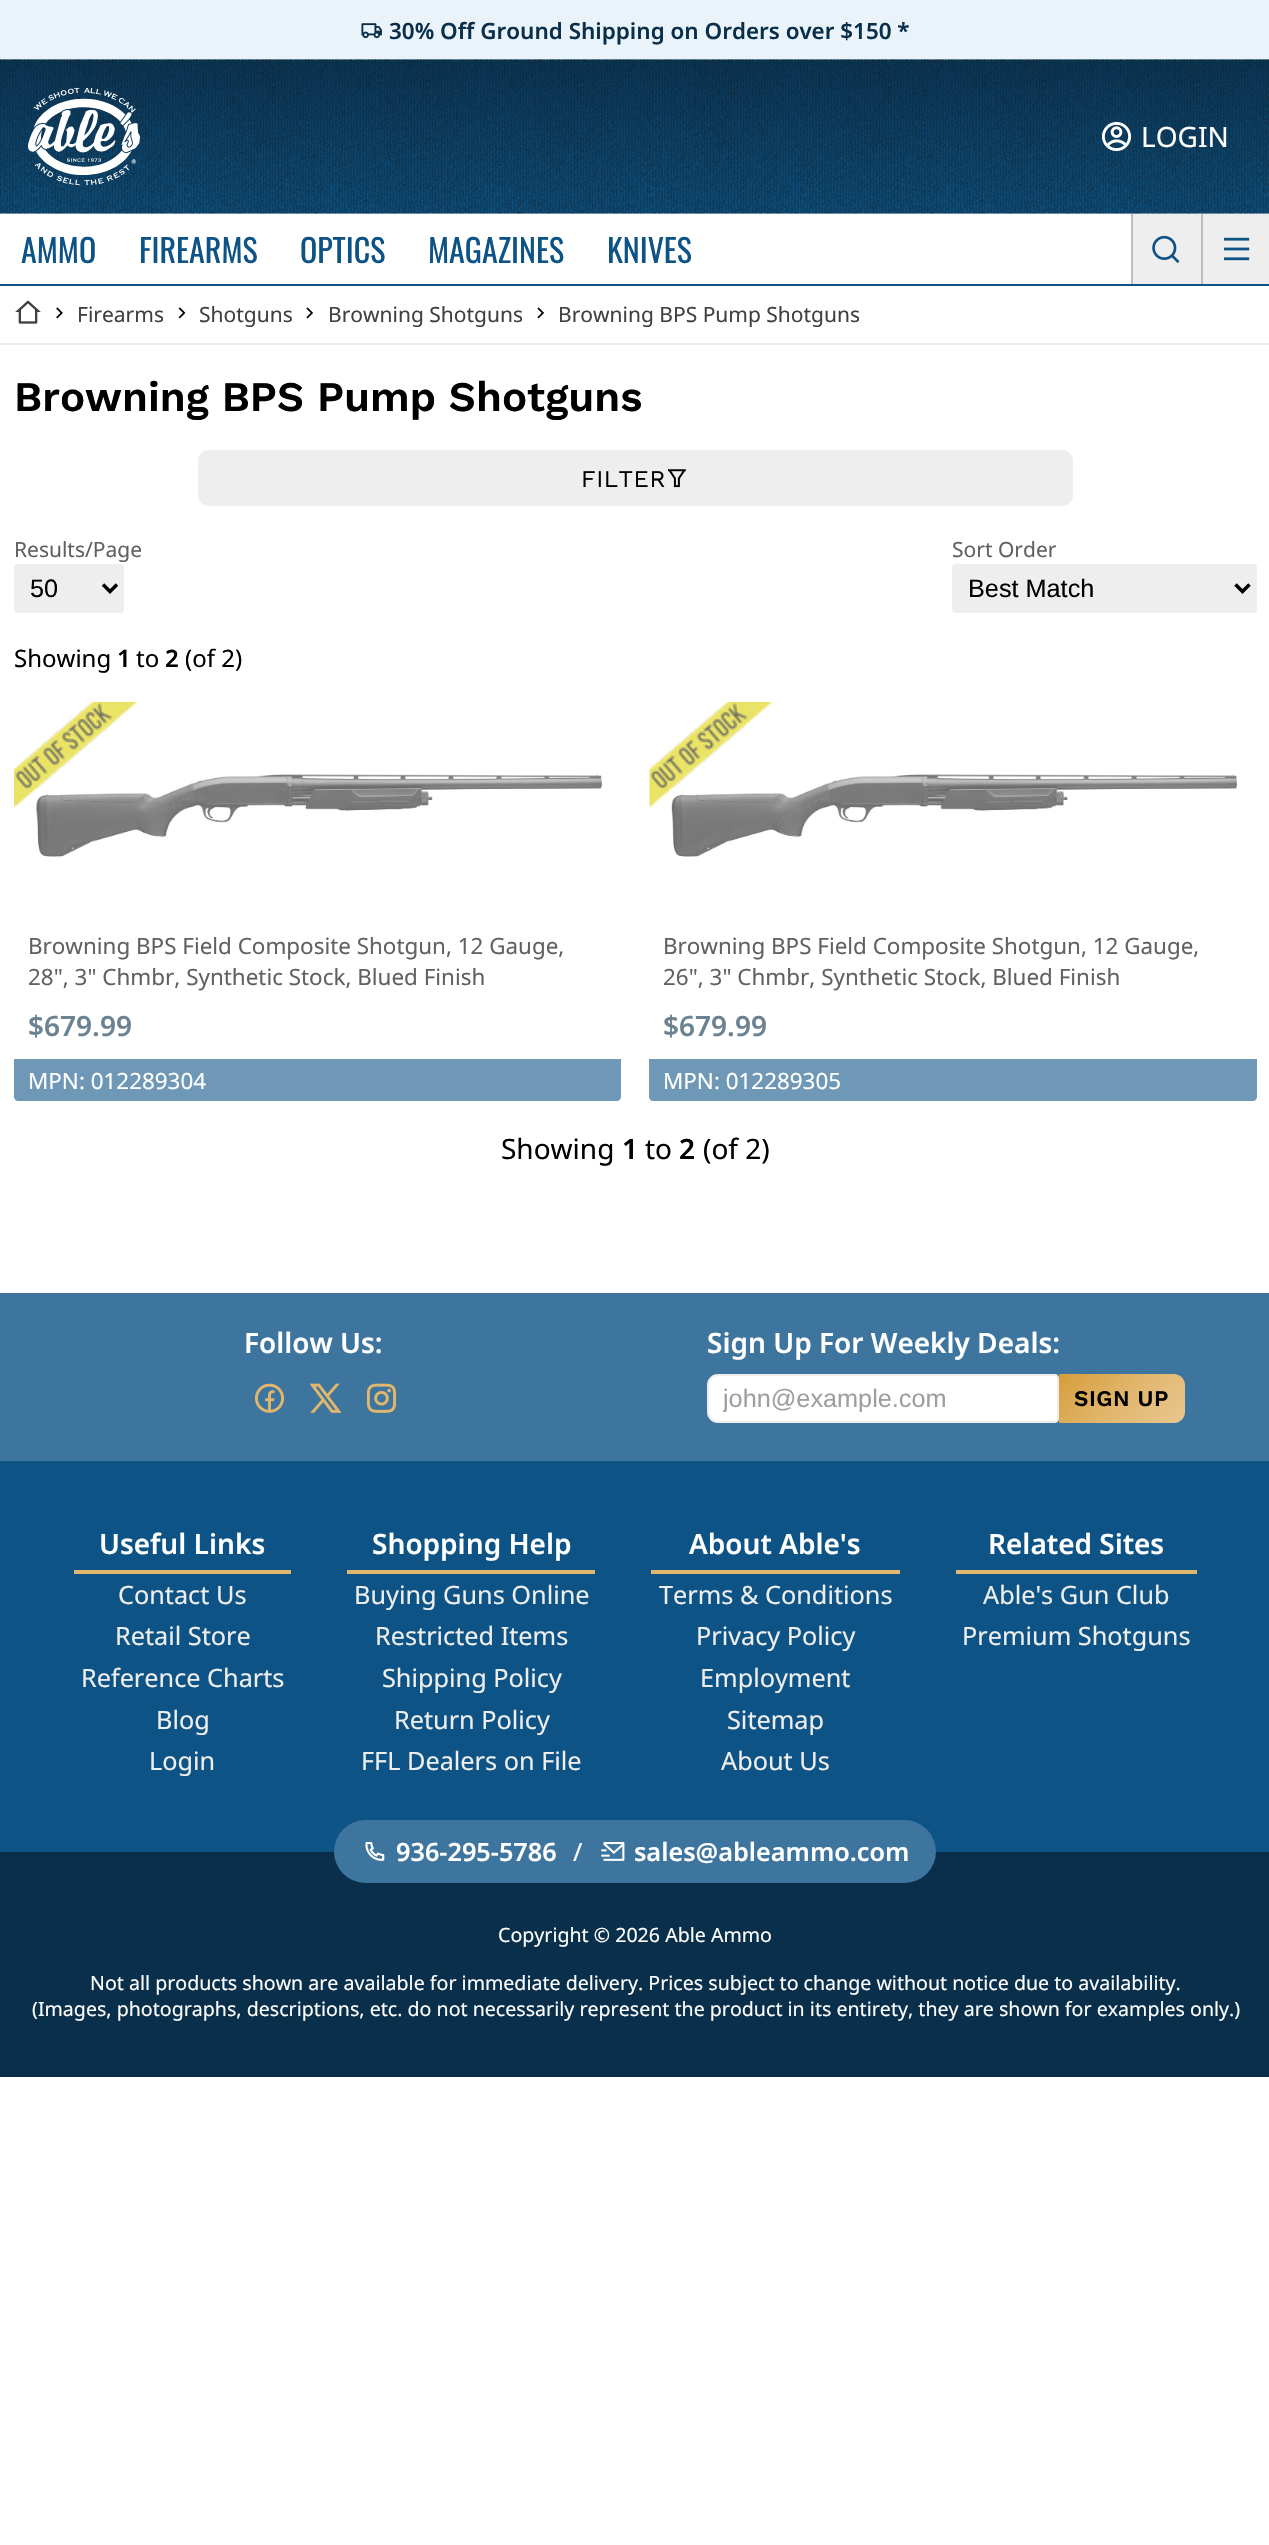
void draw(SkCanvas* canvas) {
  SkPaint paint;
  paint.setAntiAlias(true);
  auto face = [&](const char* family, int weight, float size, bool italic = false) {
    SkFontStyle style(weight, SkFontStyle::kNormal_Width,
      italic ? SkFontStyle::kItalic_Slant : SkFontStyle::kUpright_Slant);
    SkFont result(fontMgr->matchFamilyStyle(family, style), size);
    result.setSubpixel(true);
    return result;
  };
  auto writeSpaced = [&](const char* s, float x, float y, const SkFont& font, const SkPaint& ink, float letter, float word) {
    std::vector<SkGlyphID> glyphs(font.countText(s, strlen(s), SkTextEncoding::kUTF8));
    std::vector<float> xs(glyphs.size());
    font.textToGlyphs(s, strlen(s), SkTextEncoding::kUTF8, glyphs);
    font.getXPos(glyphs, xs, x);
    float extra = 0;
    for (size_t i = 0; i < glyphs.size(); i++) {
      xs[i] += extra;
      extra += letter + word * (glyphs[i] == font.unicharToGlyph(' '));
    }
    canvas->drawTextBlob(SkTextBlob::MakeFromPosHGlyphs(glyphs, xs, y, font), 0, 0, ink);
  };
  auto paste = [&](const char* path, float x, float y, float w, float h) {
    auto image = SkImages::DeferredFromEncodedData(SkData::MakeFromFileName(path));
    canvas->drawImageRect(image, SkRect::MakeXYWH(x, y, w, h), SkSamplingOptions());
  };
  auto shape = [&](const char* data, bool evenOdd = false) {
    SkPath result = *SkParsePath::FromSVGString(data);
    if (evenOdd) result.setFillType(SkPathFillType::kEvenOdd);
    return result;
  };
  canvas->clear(0xffffffff);
  paint.setColor(0xffeaf3f9);
  canvas->drawRect(SkRect::MakeXYWH(0, 0, 1269, 60), paint);
  paste("img/1.png", 361, 23, 21, 16);
  paste("img/2.png", 0, 59, 1269, 155);
  paste("img/3.png", 0, 59, 1269, 155);
  paste("img/4.png", 28, 88, 112, 98);
  paste("img/5.png", 1101, 121, 31, 31);
  {
    const struct { float x, y, w, h; SkColor color; } items[] = {
      {0, 284, 1269, 2, 0xff0d5385},
      {1133, 214, 68, 70, 0xffeeeeee},
      {1131, 214, 2, 70, 0xffbdbdbd},
    };
    for (auto [x, y, w, h, color] : items) {
      paint.setColor(color);
      canvas->drawRect(SkRect::MakeXYWH(x, y, w, h), paint);
    }
  }
  paste("img/6.png", 1152, 235, 28, 28);
  paint.setColor(0xffeeeeee);
  canvas->drawRect(SkRect::MakeXYWH(1203, 214, 66, 70), paint);
  paint.setColor(0xffbdbdbd);
  canvas->drawRect(SkRect::MakeXYWH(1201, 214, 2, 70), paint);
  paste("img/7.png", 1223, 237, 27, 24);
  paint.setColor(0xffeeeeee);
  canvas->drawRect(SkRect::MakeXYWH(0, 343, 1269, 2), paint);
  paste("img/8.png", 15, 300, 26, 24);
  paste("img/9.png", 56, 307, 7, 12);
  paste("img/10.png", 178, 307, 8, 12);
  paste("img/11.png", 306, 307, 7, 12);
  paste("img/11.png", 537, 307, 7, 12);
  canvas->drawRoundRect(SkRect::MakeXYWH(198, 450, 875, 56), 11, 11, paint);
  paste("img/12.png", 667, 469, 19, 19);
  canvas->drawRoundRect(SkRect::MakeXYWH(14, 564, 110, 49), 4, 4, paint);
  paint.setStroke(true);
  paint.setStrokeWidth(3.5f);
  paint.setColor(0xff000000);
  canvas->drawPath(shape("M103 584.5L110 591.5L117 584.5"), paint);
  paint.setStroke(false);
  paint.setColor(0xffeeeeee);
  canvas->drawRoundRect(SkRect::MakeXYWH(952, 564, 305, 49), 4, 4, paint);
  paint.setStroke(true);
  paint.setColor(0xff000000);
  canvas->drawPath(shape("M1235.5 584.5L1242.5 591.5L1249.5 584.5"), paint);
  paste("img/14.png", 36, 774, 566, 83);
  paste("img/13.png", 14, 701, 123, 106);
  paint.setStroke(false);
  paint.setColor(0xff6e98b6);
  canvas->drawPath(shape("M14 1059H621V1097C621 1099 619 1101 617 1101H18C16 1101 14 1099 14 1097Z"), paint);
  paste("img/16.png", 671, 774, 566, 83);
  paste("img/15.png", 649, 701, 123, 106);
  canvas->drawPath(shape("M649 1059H1257V1097C1257 1099 1255 1101 1253 1101H653C651 1101 649 1099 649 1097Z"), paint);
  paint.setColor(0xff0d5385);
  canvas->drawRect(SkRect::MakeXYWH(0, 1461, 1269, 391), paint);
  paint.setColor(0xff3d759e);
  canvas->drawRect(SkRect::MakeXYWH(0, 1293, 1269, 168), paint);
  paste("img/17.png", 254, 1383, 31, 30);
  paste("img/18.png", 309, 1383, 33, 30);
  paste("img/19.png", 366, 1383, 31, 30);
  paint.setColor(0xffffffff);
  canvas->drawPath(shape("M718 1375H1055C1056.5 1375 1058 1376.5 1058 1378V1419C1058 1420.5 1056.5 1422 1055 1422H718C712.5 1422 708 1417.5 708 1412V1385C708 1379.5 712.5 1375 718 1375Z"), paint);
  paint.setStroke(true);
  paint.setStrokeWidth(2);
  paint.setColor(0xffeeeeee);
  canvas->drawPath(shape("M718 1375H1055C1056.5 1375 1058 1376.5 1058 1378V1419C1058 1420.5 1056.5 1422 1055 1422H718C712.5 1422 708 1417.5 708 1412V1385C708 1379.5 712.5 1375 718 1375Z"), paint);
  paint.setStroke(false);
  {
    const SkColor colors[] = {0xffd79d3a, 0xffe1b66d, 0xffe8c78f};
    const float stops[] = {0, 0.5f, 1};
    const SkPoint ends[] = {{1078, 1355}, {1166, 1442}};
    paint.setShader(SkGradientShader::MakeLinear(ends, colors, stops, 3, SkTileMode::kClamp));
    paint.setAlpha(255);
  }
  canvas->drawPath(shape("M1059 1374H1174C1180 1374 1185 1379 1185 1385V1412C1185 1418 1180 1423 1174 1423H1059Z"), paint);
  paint.setShader(nullptr);
  {
    const struct { float x, y, w, h; SkColor color; } items[] = {
      {74, 1570, 217, 4, 0xffe1b66d},
      {347, 1570, 248, 4, 0xffe1b66d},
      {651, 1570, 249, 4, 0xffe1b66d},
      {956, 1570, 241, 4, 0xffe1b66d},
      {0, 1852, 1269, 225, 0xff092f4a},
    };
    for (auto [x, y, w, h, color] : items) {
      paint.setColor(color);
      canvas->drawRect(SkRect::MakeXYWH(x, y, w, h), paint);
    }
  }
  paint.setColor(0xff3d759e);
  canvas->drawRoundRect(SkRect::MakeXYWH(334, 1820, 602, 63), 31.5f, 31.5f, paint);
  paste("img/20.png", 365, 1842, 20, 19);
  paste("img/21.png", 601, 1842, 24, 19);
  auto f0 = face("Noto Sans", 600, 22.4f);
  paint.setColor(0xff092f4a);
  canvas->drawString("30% Off Ground Shipping on Orders over $150 *", 389, 39, f0, paint);
  auto f1 = face("Noto Sans", 400, 28);
  paint.setColor(0xffffffff);
  canvas->drawString("LOGIN", 1141, 147, f1, paint);
  auto f2 = face("Oswald", 400, 32);
  paint.setColor(0xff0d5385);
  {
    const struct { const char* s; float x, y; } items[] = {
      {"AMMO", 21, 263},
      {"FIREARMS", 139, 263},
      {"OPTICS", 300, 263},
      {"MAGAZINES", 428, 263},
      {"KNIVES", 607, 263},
    };
    for (auto [s, x, y] : items) {
      canvas->drawString(s, x, y, f2, paint);
    }
  }
  auto f3 = face("Noto Sans", 400, 21);
  paint.setColor(0xff404040);
  {
    const struct { const char* s; float x, y; } items[] = {
      {"Firearms", 77, 322},
      {"Shotguns", 199, 322},
      {"Browning Shotguns", 328, 322},
      {"Browning BPS Pump Shotguns", 558, 322},
    };
    for (auto [s, x, y] : items) {
      canvas->drawString(s, x, y, f3, paint);
    }
  }
  auto f4 = face("Work Sans", 600, 42);
  paint.setColor(0xff000000);
  canvas->drawString("Browning BPS Pump Shotguns", 14, 411, f4, paint);
  auto f5 = face("Work Sans", 400, 24);
  writeSpaced("FILTER", 581, 487, f5, paint, 0.5f, 0);
  paint.setColor(0xff616161);
  canvas->drawString("Results/Page", 14, 557, f3, paint);
  auto f6 = face("Liberation Sans", 400, 25.25f);
  paint.setColor(0xff000000);
  canvas->drawString("50", 30, 597, f6, paint);
  paint.setColor(0xff616161);
  canvas->drawString("Sort Order", 952, 557, f3, paint);
  paint.setColor(0xff000000);
  canvas->drawString("Best Match", 968, 597, f6, paint);
  auto f7 = face("Noto Sans", 400, 24);
  canvas->drawString("Showing", 14, 667, f7, paint);
  auto f8 = face("Noto Sans", 600, 24);
  canvas->drawString("1", 117, 667, f8, paint);
  canvas->drawString("to", 136, 667, f7, paint);
  canvas->drawString("2", 165, 667, f8, paint);
  canvas->drawString("(of 2)", 185, 667, f7, paint);
  auto f9 = face("Noto Sans", 400, 22.4f);
  paint.setColor(0xff616161);
  canvas->drawString("Browning BPS Field Composite Shotgun, 12 Gauge,", 28, 954, f9, paint);
  canvas->drawString("28\", 3\" Chmbr, Synthetic Stock, Blued Finish", 28, 985, f9, paint);
  auto f10 = face("Noto Sans", 600, 28);
  paint.setColor(0xff6b8292);
  canvas->drawString("$679.99", 28, 1036, f10, paint);
  paint.setColor(0xffffffff);
  canvas->drawString("MPN: 012289304", 28, 1089, f9, paint);
  paint.setColor(0xff616161);
  canvas->drawString("Browning BPS Field Composite Shotgun, 12 Gauge,", 663, 954, f9, paint);
  canvas->drawString("26\", 3\" Chmbr, Synthetic Stock, Blued Finish", 663, 985, f9, paint);
  paint.setColor(0xff6b8292);
  canvas->drawString("$679.99", 663, 1036, f10, paint);
  paint.setColor(0xffffffff);
  canvas->drawString("MPN: 012289305", 663, 1089, f9, paint);
  paint.setColor(0xff000000);
  canvas->drawString("Showing", 501, 1159, f1, paint);
  canvas->drawString("1", 622, 1159, f10, paint);
  canvas->drawString("to", 645, 1159, f1, paint);
  canvas->drawString("2", 679, 1159, f10, paint);
  canvas->drawString("(of 2)", 703, 1159, f1, paint);
  paint.setColor(0xffffffff);
  canvas->drawString("Follow Us:", 244, 1353, f10, paint);
  canvas->drawString("Sign Up For Weekly Deals:", 707, 1353, f10, paint);
  canvas->save();
  canvas->clipRect(SkRect::MakeXYWH(723, 1384, 325, 28));
  paint.setColor(0xff9e9e9e);
  canvas->drawString("john@example.com", 723, 1407, f6, paint);
  canvas->restore();
  auto f11 = face("Work Sans", 600, 22.4f);
  paint.setColor(0xff000000);
  writeSpaced("SIGN UP", 1074, 1406, f11, paint, 0.5f, 0);
  paint.setColor(0xffffffff);
  canvas->drawString("Useful Links", 99, 1554, f10, paint);
  auto f12 = face("Noto Sans", 400, 25.25f);
  paint.setColor(0xffeeeeee);
  {
    const struct { const char* s; float x, y; } items[] = {
      {"Contact Us", 118, 1604},
      {"Retail Store", 115, 1645},
      {"Reference Charts", 81, 1687},
      {"Blog", 156, 1729},
      {"Login", 149, 1770},
    };
    for (auto [s, x, y] : items) {
      canvas->drawString(s, x, y, f12, paint);
    }
  }
  paint.setColor(0xffffffff);
  canvas->drawString("Shopping Help", 372, 1554, f10, paint);
  paint.setColor(0xffeeeeee);
  {
    const struct { const char* s; float x, y; } items[] = {
      {"Buying Guns Online", 354, 1604},
      {"Restricted Items", 375, 1645},
      {"Shipping Policy", 382, 1687},
      {"Return Policy", 394, 1729},
      {"FFL Dealers on File", 361, 1770},
    };
    for (auto [s, x, y] : items) {
      canvas->drawString(s, x, y, f12, paint);
    }
  }
  paint.setColor(0xffffffff);
  canvas->drawString("About Able's", 689, 1554, f10, paint);
  paint.setColor(0xffeeeeee);
  {
    const struct { const char* s; float x, y; } items[] = {
      {"Terms & Conditions", 659, 1604},
      {"Privacy Policy", 696, 1645},
      {"Employment", 700, 1687},
      {"Sitemap", 727, 1729},
      {"About Us", 721, 1770},
    };
    for (auto [s, x, y] : items) {
      canvas->drawString(s, x, y, f12, paint);
    }
  }
  paint.setColor(0xffffffff);
  canvas->drawString("Related Sites", 988, 1554, f10, paint);
  paint.setColor(0xffeeeeee);
  canvas->drawString("Able's Gun Club", 983, 1604, f12, paint);
  canvas->drawString("Premium Shotguns", 962, 1645, f12, paint);
  auto f13 = face("Noto Sans", 600, 25.25f);
  paint.setColor(0xffffffff);
  canvas->drawString("936-295-5786", 396, 1861, f13, paint);
  canvas->drawString("/", 573, 1861, f12, paint);
  canvas->drawString("sales@ableammo.com", 634, 1861, f13, paint);
  auto f14 = face("Noto Sans", 400, 19.6f);
  {
    const struct { const char* s; float x, y; } items[] = {
      {"Copyright © 2026 Able Ammo", 498, 1942},
      {"Not all products shown are available for immediate delivery. Prices subject to change without notice due to availability.", 90, 1990},
      {"(Images, photographs, descriptions, etc. do not necessarily represent the product in its entirety, they are shown for examples only.)", 32, 2016},
    };
    for (auto [s, x, y] : items) {
      canvas->drawString(s, x, y, f14, paint);
    }
  }
}
